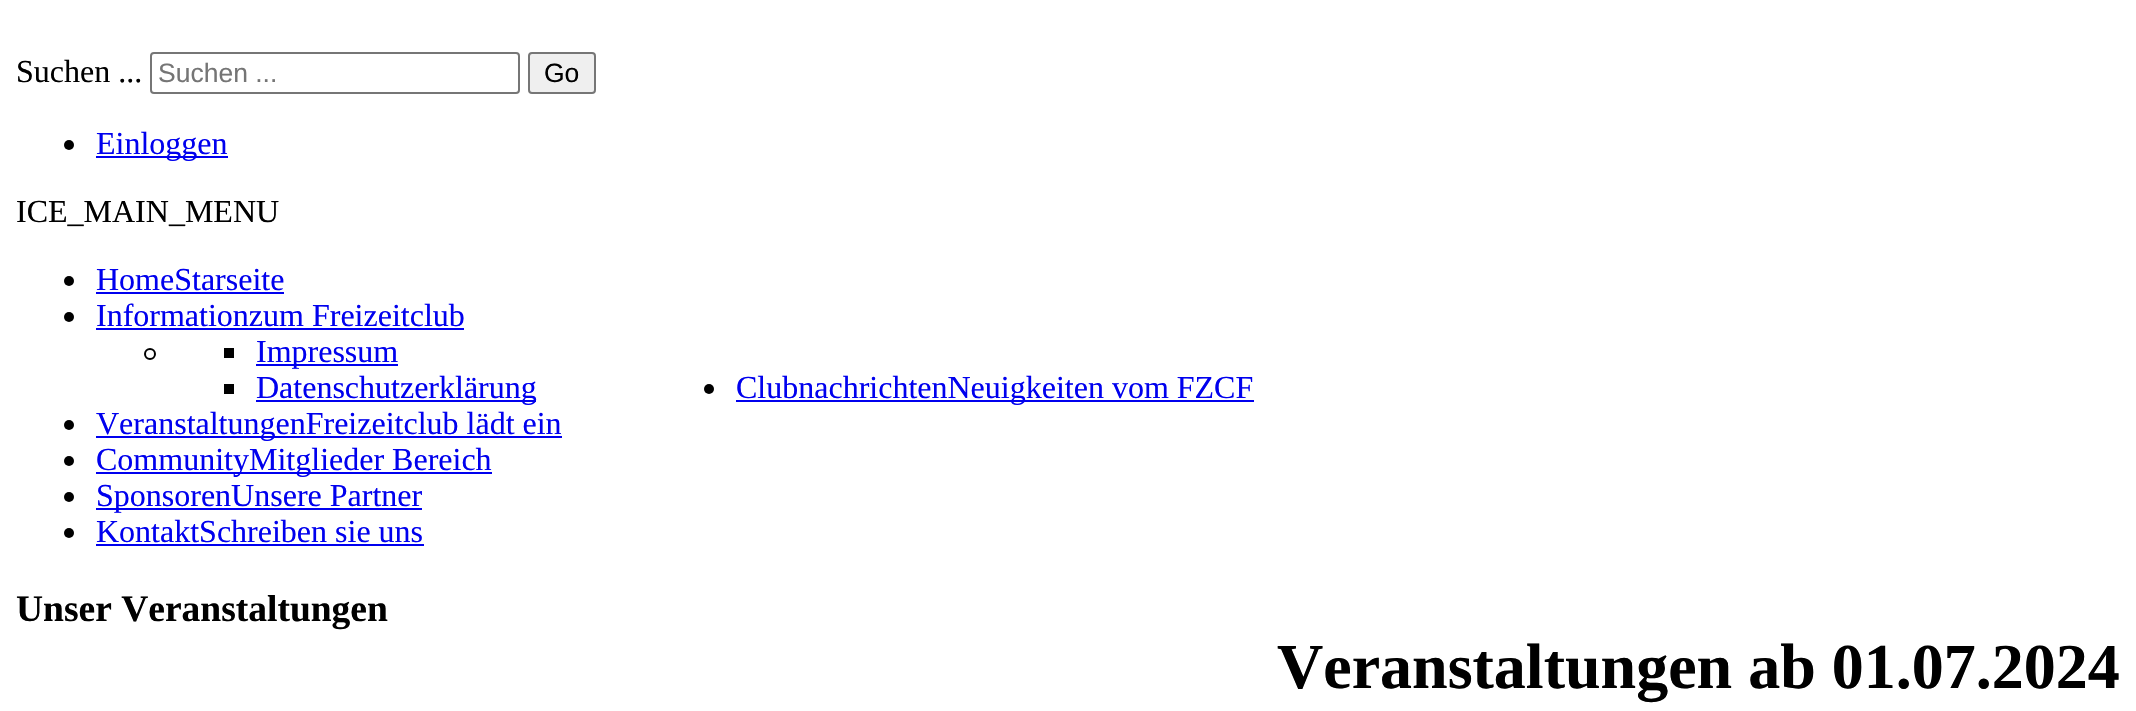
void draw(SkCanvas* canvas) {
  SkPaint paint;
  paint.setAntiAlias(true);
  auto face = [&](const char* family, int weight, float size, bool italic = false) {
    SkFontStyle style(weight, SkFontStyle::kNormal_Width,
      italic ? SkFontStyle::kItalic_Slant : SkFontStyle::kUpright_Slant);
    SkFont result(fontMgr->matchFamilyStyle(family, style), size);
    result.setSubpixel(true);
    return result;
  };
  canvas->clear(0xffffffff);
  paint.setStroke(true);
  paint.setStrokeWidth(2);
  paint.setColor(0xff767676);
  canvas->drawRoundRect(SkRect::MakeXYWH(151, 53, 368, 40), 3, 3, paint);
  paint.setStroke(false);
  paint.setColor(0xffefefef);
  canvas->drawRoundRect(SkRect::MakeXYWH(529, 53, 66, 40), 3, 3, paint);
  paint.setStroke(true);
  paint.setColor(0xff767676);
  canvas->drawRoundRect(SkRect::MakeXYWH(529, 53, 66, 40), 3, 3, paint);
  paint.setStroke(false);
  paint.setColor(0xff000000);
  canvas->drawCircle(69, 145, 5, paint);
  paint.setColor(0xff0000ee);
  canvas->drawRect(SkRect::MakeXYWH(96, 156, 132, 2), paint);
  paint.setColor(0xff000000);
  canvas->drawCircle(69, 281, 5, paint);
  paint.setColor(0xff0000ee);
  canvas->drawRect(SkRect::MakeXYWH(96, 292, 188, 2), paint);
  paint.setColor(0xff000000);
  canvas->drawCircle(69, 317, 5, paint);
  paint.setColor(0xff0000ee);
  canvas->drawRect(SkRect::MakeXYWH(96, 328, 368, 2), paint);
  paint.setStroke(true);
  paint.setColor(0xff000000);
  canvas->drawCircle(150, 354, 5, paint);
  paint.setStroke(false);
  {
    const struct { float x, y, w, h; SkColor color; } items[] = {
      {224, 348, 10, 10, 0xff000000},
      {256, 364, 142, 2, 0xff0000ee},
      {224, 384, 10, 10, 0xff000000},
      {256, 400, 280, 2, 0xff0000ee},
    };
    for (auto [x, y, w, h, color] : items) {
      paint.setColor(color);
      canvas->drawRect(SkRect::MakeXYWH(x, y, w, h), paint);
    }
  }
  paint.setColor(0xff000000);
  canvas->drawCircle(709, 389, 5, paint);
  paint.setColor(0xff0000ee);
  canvas->drawRect(SkRect::MakeXYWH(736, 400, 518, 2), paint);
  paint.setColor(0xff000000);
  canvas->drawCircle(69, 425, 5, paint);
  paint.setColor(0xff0000ee);
  canvas->drawRect(SkRect::MakeXYWH(96, 436, 466, 2), paint);
  paint.setColor(0xff000000);
  canvas->drawCircle(69, 461, 5, paint);
  paint.setColor(0xff0000ee);
  canvas->drawRect(SkRect::MakeXYWH(96, 472, 152, 2), paint);
  canvas->drawRect(SkRect::MakeXYWH(248, 472, 244, 2), paint);
  paint.setColor(0xff000000);
  canvas->drawCircle(69, 497, 5, paint);
  paint.setColor(0xff0000ee);
  canvas->drawRect(SkRect::MakeXYWH(96, 508, 326, 2), paint);
  paint.setColor(0xff000000);
  canvas->drawCircle(69, 533, 5, paint);
  paint.setColor(0xff0000ee);
  canvas->drawRect(SkRect::MakeXYWH(96, 544, 328, 2), paint);
  auto f0 = face("Liberation Serif", 400, 32);
  paint.setColor(0xff000000);
  canvas->drawString("Suchen ...", 16, 82, f0, paint);
  auto f1 = face("Liberation Sans", 400, 26.5f);
  paint.setColor(0xff757575);
  canvas->drawString("Suchen ...", 158, 82, f1, paint);
  paint.setColor(0xff000000);
  canvas->drawString("Go", 544, 82, f1, paint);
  paint.setColor(0xff0000ee);
  canvas->drawString("Einloggen", 96, 154, f0, paint);
  paint.setColor(0xff000000);
  canvas->drawString("ICE_MAIN_MENU", 16, 222, f0, paint);
  paint.setColor(0xff0000ee);
  {
    const struct { const char* s; float x, y; } items[] = {
      {"HomeStarseite", 96, 290},
      {"Informationzum Freizeitclub", 96, 326},
      {"Impressum", 256, 362},
      {"Datenschutzerklärung", 256, 398},
      {"ClubnachrichtenNeuigkeiten vom FZCF", 736, 398},
      {"VeranstaltungenFreizeitclub lädt ein", 96, 434},
      {"Community", 96, 470},
      {"Mitglieder Bereich", 249, 470},
      {"SponsorenUnsere Partner", 96, 506},
      {"KontaktSchreiben sie uns", 96, 542},
    };
    for (auto [s, x, y] : items) {
      canvas->drawString(s, x, y, f0, paint);
    }
  }
  auto f2 = face("Liberation Serif", 700, 37.5f);
  paint.setColor(0xff000000);
  canvas->drawString("Unser Veranstaltungen", 16, 621, f2, paint);
  auto f3 = face("Liberation Serif", 700, 64);
  canvas->drawString("Veranstaltungen ab 01.07.2024", 1277, 688, f3, paint);
}
